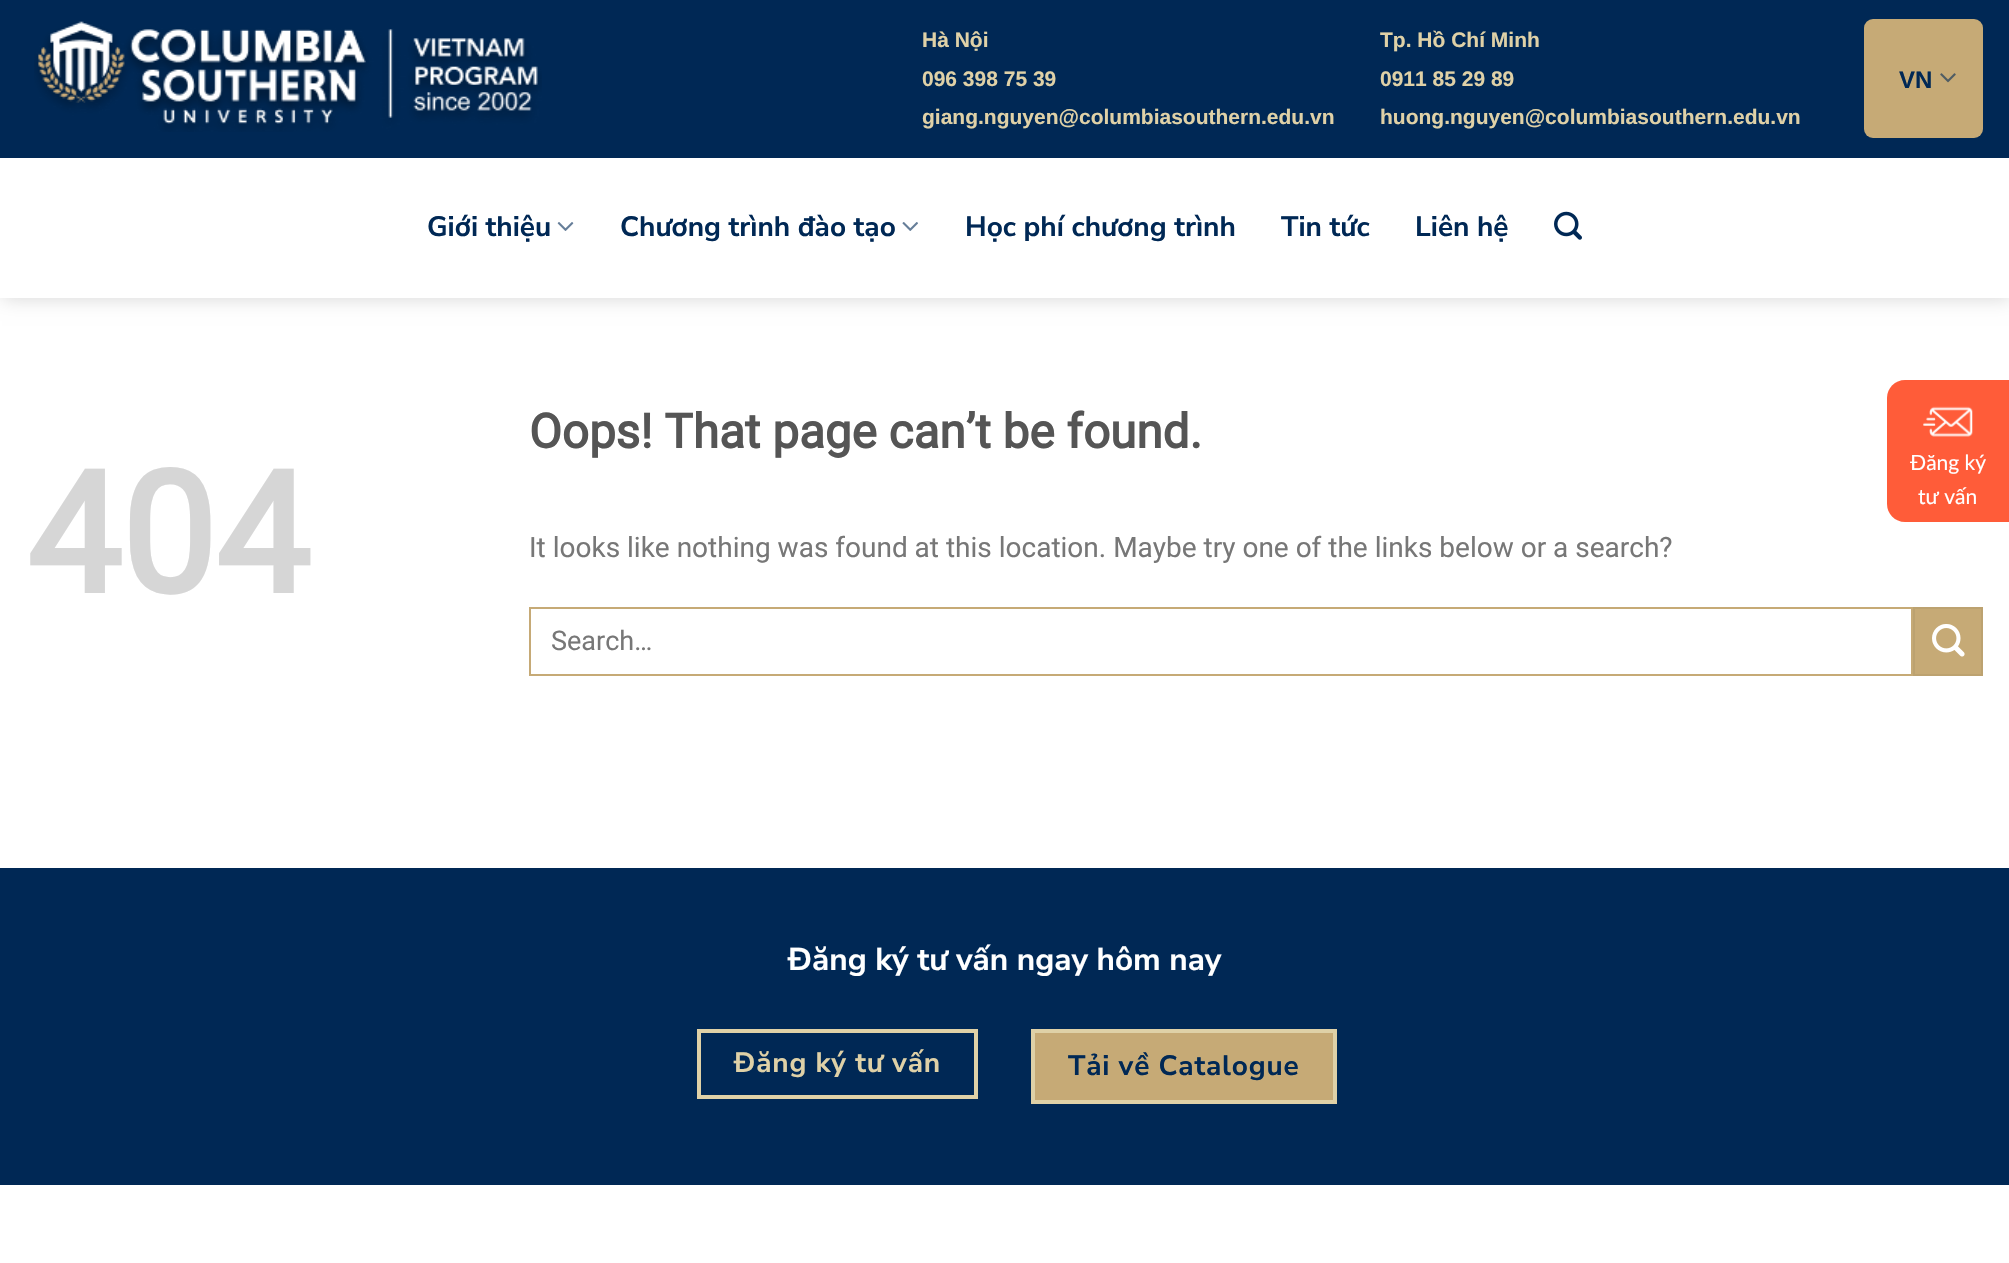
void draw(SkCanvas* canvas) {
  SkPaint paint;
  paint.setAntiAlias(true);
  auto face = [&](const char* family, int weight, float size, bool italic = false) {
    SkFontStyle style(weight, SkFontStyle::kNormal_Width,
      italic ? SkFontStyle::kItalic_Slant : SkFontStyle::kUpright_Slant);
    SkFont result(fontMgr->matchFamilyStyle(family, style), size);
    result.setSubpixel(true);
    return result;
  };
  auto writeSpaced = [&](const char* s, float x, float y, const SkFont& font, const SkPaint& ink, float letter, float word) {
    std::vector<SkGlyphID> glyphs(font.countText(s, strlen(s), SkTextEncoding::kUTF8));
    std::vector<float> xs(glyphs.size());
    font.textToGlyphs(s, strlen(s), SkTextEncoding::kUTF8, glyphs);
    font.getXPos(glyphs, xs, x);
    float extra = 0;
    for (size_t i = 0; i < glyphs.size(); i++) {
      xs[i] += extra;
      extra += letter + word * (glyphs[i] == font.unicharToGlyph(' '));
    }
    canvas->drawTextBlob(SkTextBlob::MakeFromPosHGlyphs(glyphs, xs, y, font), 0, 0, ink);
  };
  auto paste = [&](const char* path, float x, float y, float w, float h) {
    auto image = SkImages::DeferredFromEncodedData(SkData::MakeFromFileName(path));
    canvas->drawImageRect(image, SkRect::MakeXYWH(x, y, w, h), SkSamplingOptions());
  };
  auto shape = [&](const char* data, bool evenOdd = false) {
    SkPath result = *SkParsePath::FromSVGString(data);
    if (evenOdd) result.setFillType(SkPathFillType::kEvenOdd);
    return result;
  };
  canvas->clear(0xffffffff);
  paint.setColor(0x26000000);
  paint.setMaskFilter(SkMaskFilter::MakeBlur(kNormal_SkBlurStyle, 9));
  canvas->drawRect(SkRect::MakeXYWH(2, 2, 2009, 297), paint);
  paint.setMaskFilter(nullptr);
  paint.setColor(0xff002855);
  canvas->drawRect(SkRect::MakeXYWH(0, 0, 2009, 158), paint);
  paste("img/1.png", 34, 21, 508, 111);
  paint.setColor(0xffc6aa76);
  canvas->drawRoundRect(SkRect::MakeXYWH(1864, 19, 119, 119), 9, 9, paint);
  paste("img/2.png", 1940, 73, 16, 10);
  paint.setColor(0xffffffff);
  canvas->drawRect(SkRect::MakeXYWH(0, 158, 2009, 140), paint);
  paste("img/3.png", 557, 222, 17, 9);
  paste("img/4.png", 902, 222, 16, 9);
  paste("img/5.png", 1554, 211, 28, 29);
  paint.setStroke(true);
  paint.setStrokeWidth(2);
  paint.setColor(0xffc6aa76);
  canvas->drawRect(SkRect::MakeXYWH(530, 608, 1382, 67), paint);
  paint.setStroke(false);
  canvas->drawRect(SkRect::MakeXYWH(1914, 608, 68, 67), paint);
  paint.setStroke(true);
  paint.setColor(0xffbca270);
  canvas->drawRect(SkRect::MakeXYWH(1914, 608, 68, 67), paint);
  paste("img/6.png", 1932, 624, 33, 33);
  paint.setStroke(false);
  paint.setColor(0xff002855);
  canvas->drawRect(SkRect::MakeXYWH(0, 868, 2009, 317), paint);
  paint.setStroke(true);
  paint.setStrokeWidth(4);
  paint.setColor(0xffdfd1a7);
  canvas->drawRect(SkRect::MakeXYWH(699, 1031, 277, 66), paint);
  paint.setStroke(false);
  paint.setColor(0xffc6aa76);
  canvas->drawRect(SkRect::MakeXYWH(1033, 1031, 302, 71), paint);
  paint.setStroke(true);
  paint.setColor(0xffdfd1a7);
  canvas->drawRect(SkRect::MakeXYWH(1033, 1031, 302, 71), paint);
  paint.setStroke(false);
  paint.setColor(0xffff5c39);
  canvas->drawPath(shape("M1905 380H2009V522H1905C1895 522 1887 514 1887 504V398C1887 388 1895 380 1905 380Z"), paint);
  paste("img/7.png", 1923, 406, 50, 31);
  auto f0 = face("Liberation Sans", 700, 21);
  paint.setColor(0xffdfd1a7);
  {
    const struct { const char* s; float x, y; } items[] = {
      {"Hà Nội", 922, 47},
      {"096 398 75 39", 922, 86},
      {"giang.nguyen@columbiasouthern.edu.vn", 922, 124},
      {"Tp. Hồ Chí Minh", 1380, 47},
      {"0911 85 29 89", 1380, 86},
      {"huong.nguyen@columbiasouthern.edu.vn", 1380, 124},
    };
    for (auto [s, x, y] : items) {
      canvas->drawString(s, x, y, f0, paint);
    }
  }
  auto f1 = face("Liberation Sans", 700, 24);
  paint.setColor(0xff002855);
  canvas->drawString("VN", 1899, 88, f1, paint);
  auto f2 = face("Nunito Sans", 700, 28);
  {
    const struct { const char* s; float x, y; } items[] = {
      {"Giới thiệu", 427, 236},
      {"Chương trình đào tạo", 620, 236},
      {"Học phí chương trình", 965, 236},
      {"Tin tức", 1281, 236},
      {"Liên hệ", 1415, 236},
    };
    for (auto [s, x, y] : items) {
      canvas->drawString(s, x, y, f2, paint);
    }
  }
  auto f3 = face("Roboto", 700, 168);
  paint.setColor(0xffd6d6d6);
  canvas->drawString("404", 26, 593, f3, paint);
  auto f4 = face("Roboto", 700, 47.6f);
  paint.setColor(0xff555555);
  canvas->drawString("Oops! That page can’t be found.", 529, 448, f4, paint);
  auto f5 = face("Roboto", 400, 28);
  paint.setColor(0xff777777);
  canvas->drawString("It looks like nothing was found at this location. Maybe try one of the links below or a search?", 529, 557, f5, paint);
  auto f6 = face("Roboto", 400, 27);
  canvas->drawString("Search…", 551, 650, f6, paint);
  auto f7 = face("Nunito Sans", 700, 31.5f);
  paint.setColor(0xffffffff);
  canvas->drawString("Đăng ký tư vấn ngay hôm nay", 788, 970, f7, paint);
  paint.setColor(0xffdfd1a7);
  writeSpaced("Đăng ký tư vấn", 734, 1072, f2, paint, 0.8f, 0);
  paint.setColor(0xff002855);
  writeSpaced("Tải về Catalogue", 1068, 1075, f2, paint, 0.8f, 0);
  auto f8 = face("Lato", 400, 21);
  paint.setColor(0xffffffff);
  canvas->drawString("Đăng ký", 1910, 470, f8, paint);
  canvas->drawString("tư vấn", 1918, 504, f8, paint);
}
